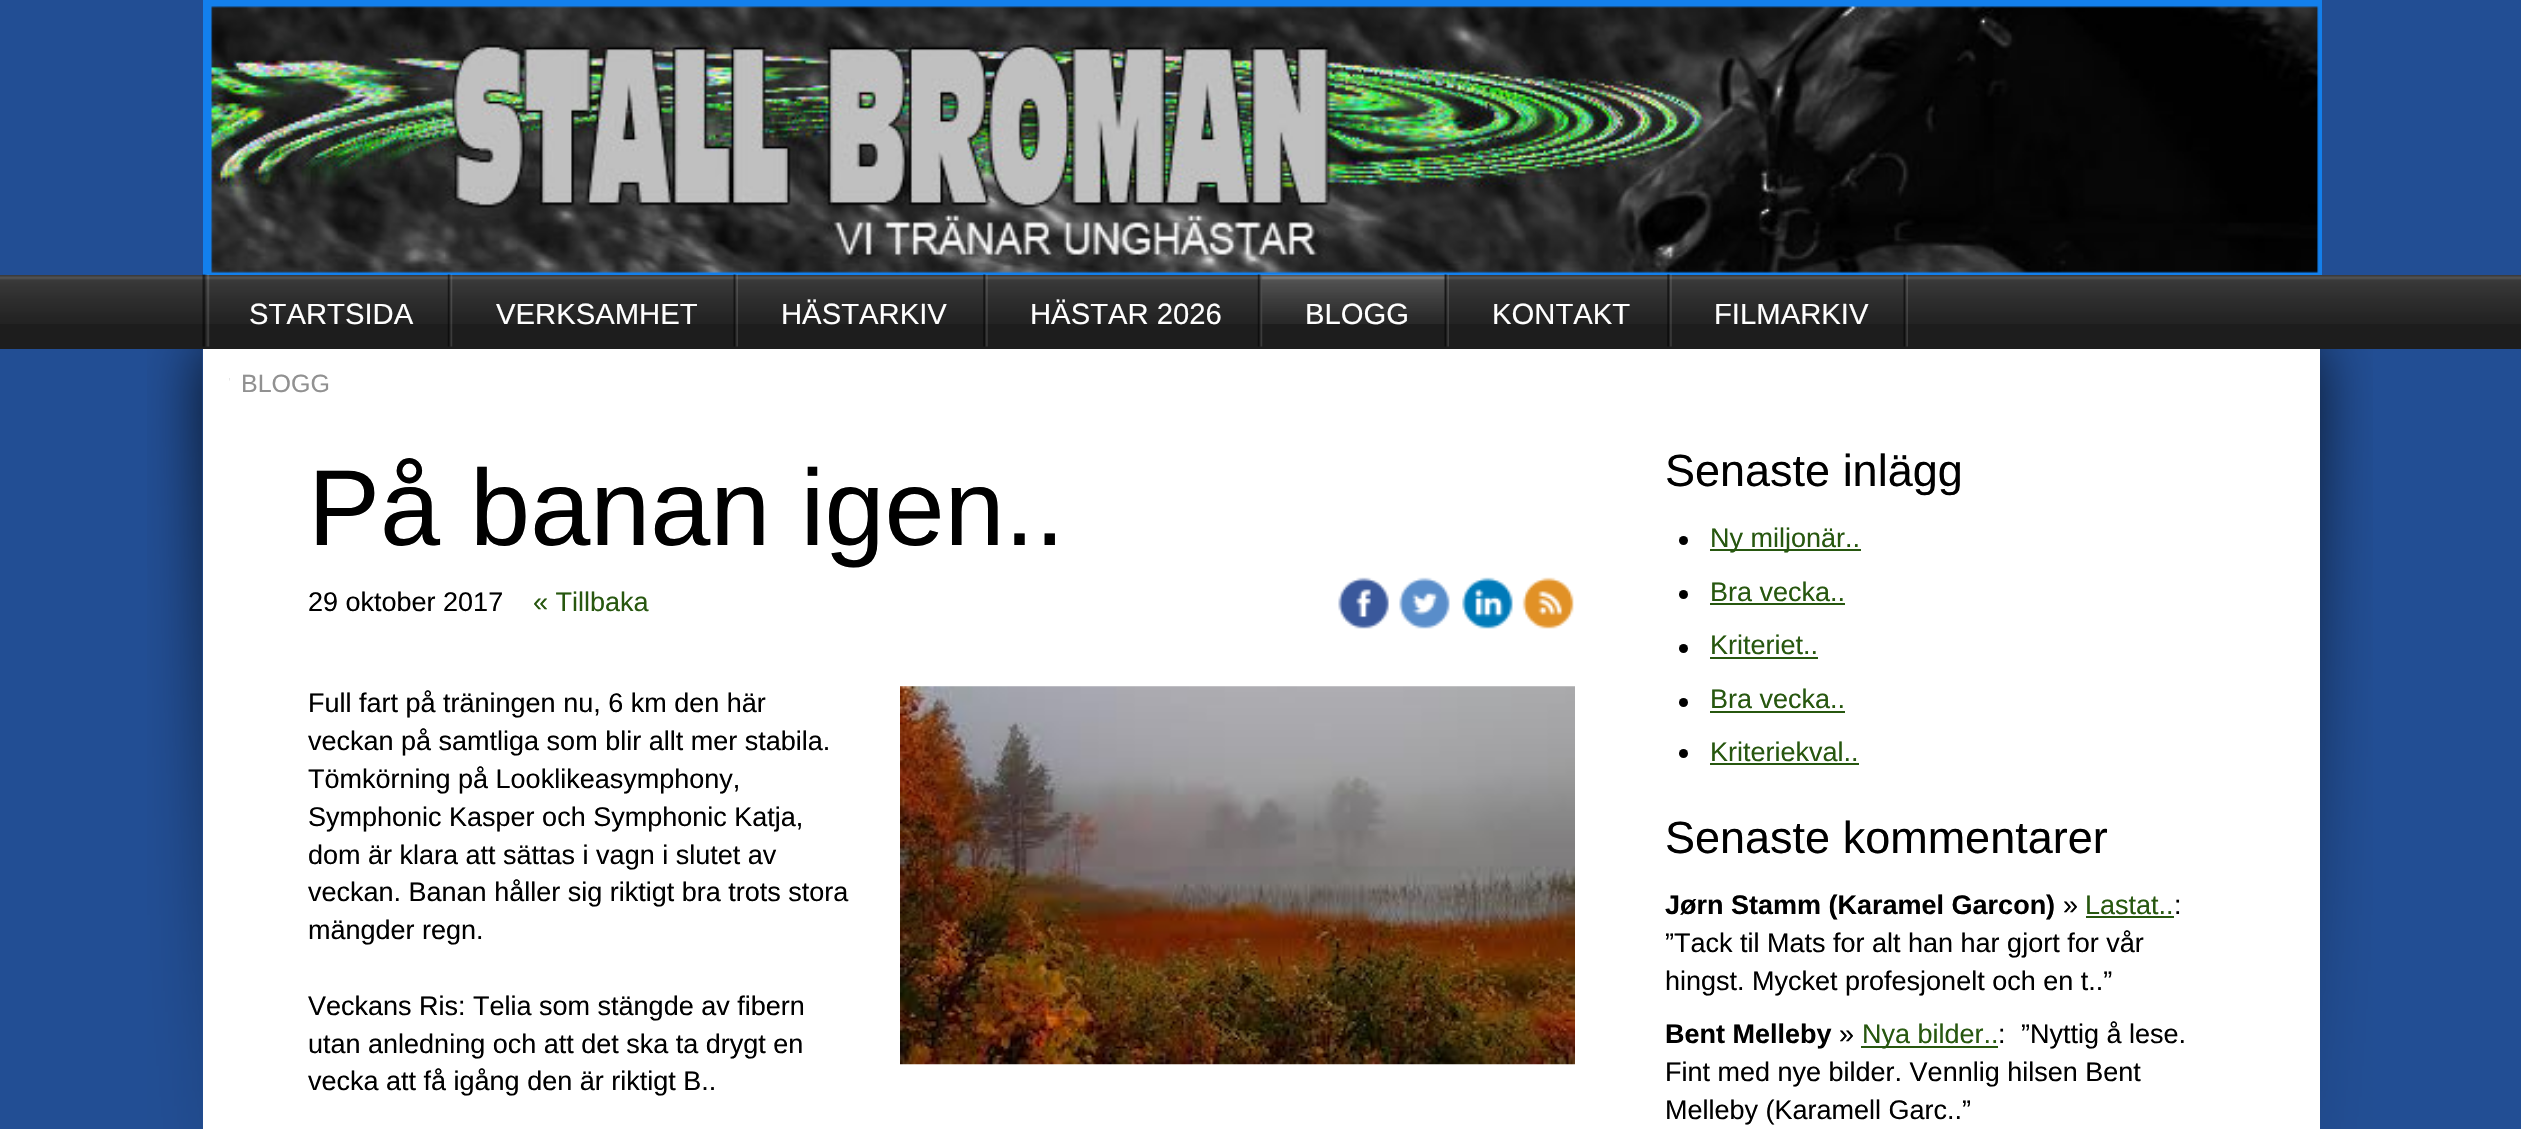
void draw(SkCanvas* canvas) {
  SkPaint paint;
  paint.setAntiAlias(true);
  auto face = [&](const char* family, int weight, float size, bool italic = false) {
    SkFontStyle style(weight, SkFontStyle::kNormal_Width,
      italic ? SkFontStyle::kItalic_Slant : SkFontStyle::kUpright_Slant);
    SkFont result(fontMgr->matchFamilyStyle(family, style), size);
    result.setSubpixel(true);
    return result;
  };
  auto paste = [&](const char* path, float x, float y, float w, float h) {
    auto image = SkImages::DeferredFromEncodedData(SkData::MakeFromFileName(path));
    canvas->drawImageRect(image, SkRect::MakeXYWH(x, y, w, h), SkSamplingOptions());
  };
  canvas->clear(0xff224e94);
  paint.setColor(0xff1380ed);
  canvas->drawRect(SkRect::MakeXYWH(203, 0, 2119, 275), paint);
  paste("img/1.png", 211, 6, 2108, 267);
  paint.setColor(0xff1d1d1d);
  canvas->drawRect(SkRect::MakeXYWH(0, 275, 2521, 74), paint);
  paste("img/2.png", 0, 275, 2521, 49);
  paste("img/3.png", 202, 274, 8, 73);
  paste("img/4.png", 447, 274, 6, 73);
  paste("img/5.png", 733, 274, 5, 73);
  paste("img/6.png", 983, 274, 5, 73);
  paste("img/4.png", 1257, 274, 6, 73);
  paste("img/5.png", 1444, 274, 5, 73);
  paste("img/7.png", 1262, 274, 183, 50);
  paste("img/8.png", 1667, 274, 5, 73);
  paste("img/5.png", 1903, 274, 5, 73);
  paste("img/9.png", 147, 349, 2226, 780);
  paint.setColor(0xffffffff);
  canvas->drawRect(SkRect::MakeXYWH(203, 349, 2117, 780), paint);
  paste("img/10.png", 229, 378, 1, 3);
  paste("img/11.png", 1338, 577, 51, 52);
  paste("img/12.png", 1399, 577, 51, 52);
  paste("img/13.png", 1462, 577, 51, 52);
  paste("img/14.png", 1522, 577, 52, 52);
  paste("img/15.png", 900, 686, 675, 379);
  paint.setColor(0xff000000);
  canvas->drawCircle(1683.5f, 540.5f, 4.5f, paint);
  paint.setColor(0xff27570f);
  canvas->drawRect(SkRect::MakeXYWH(1710, 549, 151, 2), paint);
  paint.setColor(0xff000000);
  canvas->drawCircle(1683.5f, 594.5f, 4.5f, paint);
  paint.setColor(0xff27570f);
  canvas->drawRect(SkRect::MakeXYWH(1710, 603, 135, 2), paint);
  paint.setColor(0xff000000);
  canvas->drawCircle(1683.5f, 648.5f, 4.5f, paint);
  paint.setColor(0xff27570f);
  canvas->drawRect(SkRect::MakeXYWH(1710, 657, 108, 2), paint);
  paint.setColor(0xff000000);
  canvas->drawCircle(1683.5f, 702.5f, 4.5f, paint);
  paint.setColor(0xff27570f);
  canvas->drawRect(SkRect::MakeXYWH(1710, 711, 135, 2), paint);
  paint.setColor(0xff000000);
  canvas->drawCircle(1683.5f, 753.5f, 4.5f, paint);
  {
    const struct { float x, y, w, h; SkColor color; } items[] = {
      {1710, 763, 149, 2, 0xff27570f},
      {2086, 916, 88, 2, 0xff27570f},
      {1861, 1046, 137, 2, 0xff27570f},
    };
    for (auto [x, y, w, h, color] : items) {
      paint.setColor(color);
      canvas->drawRect(SkRect::MakeXYWH(x, y, w, h), paint);
    }
  }
  auto f0 = face("Liberation Sans", 400, 29.25f);
  paint.setColor(0xffffffff);
  {
    const struct { const char* s; float x, y; } items[] = {
      {"STARTSIDA", 249, 324},
      {"VERKSAMHET", 496, 324},
      {"HÄSTARKIV", 781, 324},
      {"HÄSTAR 2026", 1030, 324},
      {"BLOGG", 1305, 324},
      {"KONTAKT", 1492, 324},
      {"FILMARKIV", 1714, 324},
    };
    for (auto [s, x, y] : items) {
      canvas->drawString(s, x, y, f0, paint);
    }
  }
  auto f1 = face("Liberation Sans", 400, 25);
  paint.setColor(0xff919191);
  canvas->drawString("BLOGG", 241, 392, f1, paint);
  auto f2 = face("Arimo", 400, 108);
  paint.setColor(0xff000000);
  canvas->drawString("På banan igen..", 308, 545, f2, paint);
  auto f3 = face("Liberation Sans", 400, 27);
  canvas->drawString("29 oktober 2017", 308, 611, f3, paint);
  paint.setColor(0xff27570f);
  canvas->drawString("« Tillbaka", 533, 611, f3, paint);
  paint.setColor(0xff000000);
  {
    const struct { const char* s; float x, y; } items[] = {
      {"Full fart på träningen nu, 6 km den här", 308, 712},
      {"veckan på samtliga som blir allt mer stabila.", 308, 750},
      {"Tömkörning på Looklikeasymphony,", 308, 788},
      {"Symphonic Kasper och Symphonic Katja,", 308, 826},
      {"dom är klara att sättas i vagn i slutet av", 308, 864},
      {"veckan. Banan håller sig riktigt bra trots stora", 308, 901},
      {"mängder regn.", 308, 939},
      {"Veckans Ris: Telia som stängde av fibern", 308, 1015},
      {"utan anledning och att det ska ta drygt en", 308, 1053},
      {"vecka att få igång den är riktigt B..", 308, 1090},
    };
    for (auto [s, x, y] : items) {
      canvas->drawString(s, x, y, f3, paint);
    }
  }
  auto f4 = face("Liberation Sans", 400, 45);
  canvas->drawString("Senaste inlägg", 1665, 486, f4, paint);
  paint.setColor(0xff27570f);
  {
    const struct { const char* s; float x, y; } items[] = {
      {"Ny miljonär..", 1710, 547},
      {"Bra vecka..", 1710, 601},
      {"Kriteriet..", 1710, 654},
      {"Bra vecka..", 1710, 708},
      {"Kriteriekval..", 1710, 761},
    };
    for (auto [s, x, y] : items) {
      canvas->drawString(s, x, y, f3, paint);
    }
  }
  paint.setColor(0xff000000);
  canvas->drawString("Senaste kommentarer", 1665, 853, f4, paint);
  auto f5 = face("Liberation Sans", 700, 27);
  canvas->drawString("Jørn Stamm (Karamel Garcon)", 1665, 914, f5, paint);
  canvas->drawString("»", 2063, 914, f3, paint);
  paint.setColor(0xff27570f);
  canvas->drawString("Lastat..", 2085, 914, f3, paint);
  paint.setColor(0xff000000);
  {
    const struct { const char* s; float x, y; } items[] = {
      {":", 2174, 914},
      {"”Tack til Mats for alt han har gjort for vår", 1665, 952},
      {"hingst. Mycket profesjonelt och en t..”", 1665, 990},
    };
    for (auto [s, x, y] : items) {
      canvas->drawString(s, x, y, f3, paint);
    }
  }
  canvas->drawString("Bent Melleby", 1665, 1043, f5, paint);
  canvas->drawString("»", 1839, 1043, f3, paint);
  paint.setColor(0xff27570f);
  canvas->drawString("Nya bilder..", 1862, 1043, f3, paint);
  paint.setColor(0xff000000);
  {
    const struct { const char* s; float x, y; } items[] = {
      {":", 1998, 1043},
      {"”Nyttig å lese.", 2021, 1043},
      {"Fint med nye bilder. Vennlig hilsen Bent", 1665, 1081},
      {"Melleby (Karamell Garc..”", 1665, 1119},
    };
    for (auto [s, x, y] : items) {
      canvas->drawString(s, x, y, f3, paint);
    }
  }
}
